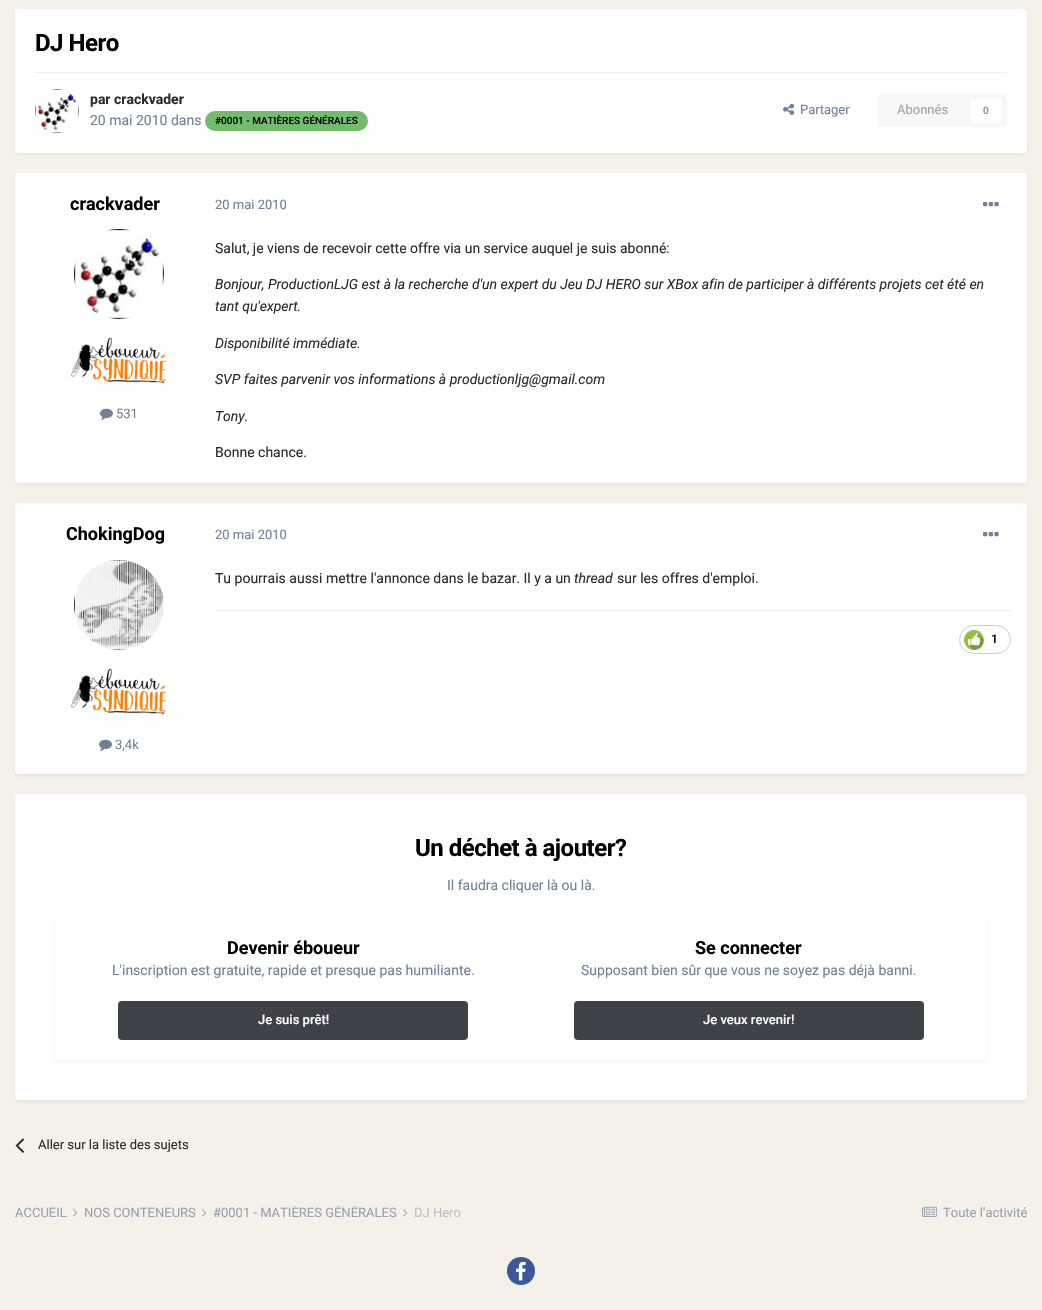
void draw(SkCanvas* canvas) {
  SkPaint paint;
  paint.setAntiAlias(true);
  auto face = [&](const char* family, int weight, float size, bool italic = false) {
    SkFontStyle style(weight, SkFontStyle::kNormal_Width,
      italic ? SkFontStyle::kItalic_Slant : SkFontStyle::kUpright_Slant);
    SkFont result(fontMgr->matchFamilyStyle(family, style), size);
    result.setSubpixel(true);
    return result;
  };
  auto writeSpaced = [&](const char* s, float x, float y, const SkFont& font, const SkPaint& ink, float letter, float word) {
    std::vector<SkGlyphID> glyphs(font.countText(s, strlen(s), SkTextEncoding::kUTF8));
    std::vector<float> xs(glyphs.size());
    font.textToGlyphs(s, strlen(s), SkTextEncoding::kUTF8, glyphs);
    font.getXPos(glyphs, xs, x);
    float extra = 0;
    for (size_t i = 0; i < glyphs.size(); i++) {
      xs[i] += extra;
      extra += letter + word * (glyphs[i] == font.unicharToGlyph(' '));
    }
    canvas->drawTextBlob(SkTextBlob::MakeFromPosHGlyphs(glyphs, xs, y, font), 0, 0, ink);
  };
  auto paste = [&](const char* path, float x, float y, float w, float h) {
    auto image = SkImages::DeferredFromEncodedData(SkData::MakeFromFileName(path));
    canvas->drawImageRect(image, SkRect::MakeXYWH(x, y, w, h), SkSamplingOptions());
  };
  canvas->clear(0xfff5f1e9);
  paint.setColor(0x1a2d3748);
  paint.setMaskFilter(SkMaskFilter::MakeBlur(kNormal_SkBlurStyle, 2));
  canvas->drawRoundRect(SkRect::MakeXYWH(16, 12, 1010, 142), 3, 3, paint);
  paint.setMaskFilter(nullptr);
  paint.setColor(0xffffffff);
  canvas->drawRoundRect(SkRect::MakeXYWH(15, 9, 1012, 144), 4, 4, paint);
  paint.setColor(0xffeeeeee);
  canvas->drawRect(SkRect::MakeXYWH(35, 72, 972, 1), paint);
  paste("img/1.png", 35, 89, 44, 44);
  paint.setColor(0xff74bc6d);
  canvas->drawRoundRect(SkRect::MakeXYWH(205, 111, 163, 20), 10, 10, paint);
  paste("img/2.png", 783, 103, 12, 12);
  paint.setColor(0xfff7f7f7);
  canvas->drawRoundRect(SkRect::MakeXYWH(878, 94, 129, 33), 4, 4, paint);
  paint.setColor(0xffffffff);
  canvas->drawRoundRect(SkRect::MakeXYWH(970, 99, 32, 24), 4, 4, paint);
  paint.setColor(0x1a2d3748);
  paint.setMaskFilter(SkMaskFilter::MakeBlur(kNormal_SkBlurStyle, 2));
  canvas->drawRoundRect(SkRect::MakeXYWH(16, 176, 1010, 308), 3, 3, paint);
  paint.setMaskFilter(nullptr);
  paint.setColor(0xffffffff);
  canvas->drawRoundRect(SkRect::MakeXYWH(15, 173, 1012, 310), 4, 4, paint);
  paste("img/3.png", 74, 229, 90, 90);
  paste("img/4.png", 71, 337, 96, 47);
  paste("img/5.png", 100, 408, 13, 12);
  paste("img/6.png", 983, 202, 16, 5);
  paint.setColor(0x1a2d3748);
  paint.setMaskFilter(SkMaskFilter::MakeBlur(kNormal_SkBlurStyle, 2));
  canvas->drawRoundRect(SkRect::MakeXYWH(16, 506, 1010, 269), 3, 3, paint);
  paint.setMaskFilter(nullptr);
  paint.setColor(0xffffffff);
  canvas->drawRoundRect(SkRect::MakeXYWH(15, 503, 1012, 271), 4, 4, paint);
  paste("img/7.png", 74, 560, 90, 90);
  paste("img/8.png", 71, 668, 96, 47);
  paste("img/5.png", 99, 739, 13, 12);
  paste("img/6.png", 983, 532, 16, 5);
  paint.setColor(0xffeaeaea);
  canvas->drawRect(SkRect::MakeXYWH(215, 610, 796, 1), paint);
  paint.setStroke(true);
  paint.setStrokeWidth(1);
  paint.setColor(0xffc6ccd5);
  canvas->drawRoundRect(SkRect::MakeXYWH(959.5f, 625.5f, 51, 28), 14, 14, paint);
  paste("img/9.png", 964, 630, 20, 20);
  paint.setStroke(false);
  paint.setColor(0x1a2d3748);
  paint.setMaskFilter(SkMaskFilter::MakeBlur(kNormal_SkBlurStyle, 2));
  canvas->drawRoundRect(SkRect::MakeXYWH(16, 797, 1010, 304), 3, 3, paint);
  paint.setMaskFilter(nullptr);
  paint.setColor(0xffffffff);
  canvas->drawRoundRect(SkRect::MakeXYWH(15, 794, 1012, 306), 4, 4, paint);
  paint.setColor(0x1a2d3748);
  paint.setMaskFilter(SkMaskFilter::MakeBlur(kNormal_SkBlurStyle, 2));
  canvas->drawRoundRect(SkRect::MakeXYWH(56, 919, 930, 142), 3, 3, paint);
  paint.setMaskFilter(nullptr);
  paint.setColor(0xffffffff);
  canvas->drawRoundRect(SkRect::MakeXYWH(55, 916, 932, 144), 4, 4, paint);
  paint.setColor(0xff3e4148);
  canvas->drawRoundRect(SkRect::MakeXYWH(118, 1001, 350, 39), 4, 4, paint);
  canvas->drawRoundRect(SkRect::MakeXYWH(574, 1001, 350, 39), 4, 4, paint);
  paste("img/10.png", 15, 1138, 10, 15);
  paste("img/11.png", 73, 1209, 5, 8);
  paste("img/11.png", 202, 1209, 5, 8);
  paste("img/11.png", 403, 1209, 5, 8);
  paste("img/12.png", 922, 1206, 15, 11);
  paint.setColor(0xff3b5998);
  canvas->drawCircle(521, 1271, 14, paint);
  paste("img/13.png", 516, 1261, 10, 20);
  auto f0 = face("Roboto", 700, 24);
  paint.setColor(0xff000000);
  writeSpaced("DJ Hero", 35, 51, f0, paint, -0.5f, 0);
  auto f1 = face("Roboto", 700, 14);
  paint.setColor(0xff2b2b2b);
  canvas->drawString("par crackvader", 90, 104, f1, paint);
  auto f2 = face("Roboto", 400, 14);
  paint.setColor(0xff718096);
  canvas->drawString("20 mai 2010 dans", 90, 125, f2, paint);
  auto f3 = face("Roboto", 500, 10);
  paint.setColor(0xff000000);
  canvas->drawString("#0001 - MATIÈRES GÉNÉRALES", 215, 124, f3, paint);
  auto f4 = face("Roboto", 400, 13);
  paint.setColor(0xff718096);
  canvas->drawString("Partager", 800, 114, f4, paint);
  paint.setColor(0xffa2a2a2);
  canvas->drawString("Abonnés", 897, 114, f4, paint);
  auto f5 = face("Roboto", 700, 10);
  paint.setColor(0xff959595);
  canvas->drawString("0", 983, 114, f5, paint);
  auto f6 = face("Roboto", 700, 18);
  paint.setColor(0xff000000);
  canvas->drawString("crackvader", 70, 210, f6, paint);
  paint.setColor(0xff718096);
  canvas->drawString("531", 116, 418, f4, paint);
  canvas->drawString("20 mai 2010", 215, 209, f4, paint);
  paint.setColor(0xff2b2b2b);
  canvas->drawString("Salut, je viens de recevoir cette offre via un service auquel je suis abonné:", 215, 253, f2, paint);
  auto f7 = face("Roboto", 400, 14, true);
  {
    const struct { const char* s; float x, y; } items[] = {
      {"Bonjour, ProductionLJG est à la recherche d'un expert du Jeu DJ HERO sur XBox afin de participer à différents projets cet été en", 215, 289},
      {"tant qu'expert.", 215, 311},
      {"Disponibilité immédiate.", 215, 348},
      {"SVP faites parvenir vos informations à productionljg@gmail.com", 215, 384},
      {"Tony.", 215, 421},
    };
    for (auto [s, x, y] : items) {
      canvas->drawString(s, x, y, f7, paint);
    }
  }
  canvas->drawString("Bonne chance.", 215, 457, f2, paint);
  paint.setColor(0xff000000);
  canvas->drawString("ChokingDog", 66, 540, f6, paint);
  paint.setColor(0xff718096);
  canvas->drawString("3,4k", 115, 749, f4, paint);
  canvas->drawString("20 mai 2010", 215, 539, f4, paint);
  paint.setColor(0xff2b2b2b);
  canvas->drawString("Tu pourrais aussi mettre l'annonce dans le bazar. Il y a un", 215, 583, f2, paint);
  canvas->drawString("thread", 574, 583, f7, paint);
  canvas->drawString("sur les offres d'emploi.", 617, 583, f2, paint);
  auto f8 = face("Roboto", 500, 12);
  paint.setColor(0xff000000);
  canvas->drawString("1", 991, 643, f8, paint);
  writeSpaced("Un déchet à ajouter?", 415, 856, f0, paint, -0.5f, 0);
  paint.setColor(0xff718096);
  canvas->drawString("Il faudra cliquer là ou là.", 447, 890, f2, paint);
  paint.setColor(0xff000000);
  canvas->drawString("Devenir éboueur", 227, 954, f6, paint);
  paint.setColor(0xff718096);
  canvas->drawString("L'inscription est gratuite, rapide et presque pas humiliante.", 112, 975, f2, paint);
  auto f9 = face("Roboto", 500, 13);
  paint.setColor(0xffffffff);
  canvas->drawString("Je suis prêt!", 258, 1024, f9, paint);
  paint.setColor(0xff000000);
  canvas->drawString("Se connecter", 695, 954, f6, paint);
  paint.setColor(0xff718096);
  canvas->drawString("Supposant bien sûr que vous ne soyez pas déjà banni.", 581, 975, f2, paint);
  paint.setColor(0xffffffff);
  canvas->drawString("Je veux revenir!", 703, 1024, f9, paint);
  paint.setColor(0xff2b2b2b);
  canvas->drawString("Aller sur la liste des sujets", 38, 1149, f4, paint);
  paint.setColor(0xff99a2af);
  canvas->drawString("ACCUEIL", 15, 1217, f4, paint);
  canvas->drawString("NOS CONTENEURS", 84, 1217, f4, paint);
  canvas->save();
  canvas->clipRect(SkRect::MakeXYWH(213, 1206, 197, 15));
  canvas->drawString("#0001 - MATIÈRES GÉNÉRALES", 213, 1217, f4, paint);
  canvas->restore();
  paint.setColor(0xffbec1c6);
  canvas->drawString("DJ Hero", 414, 1217, f4, paint);
  paint.setColor(0xff99a2af);
  canvas->drawString("Toute l’activité", 943, 1217, f4, paint);
}
